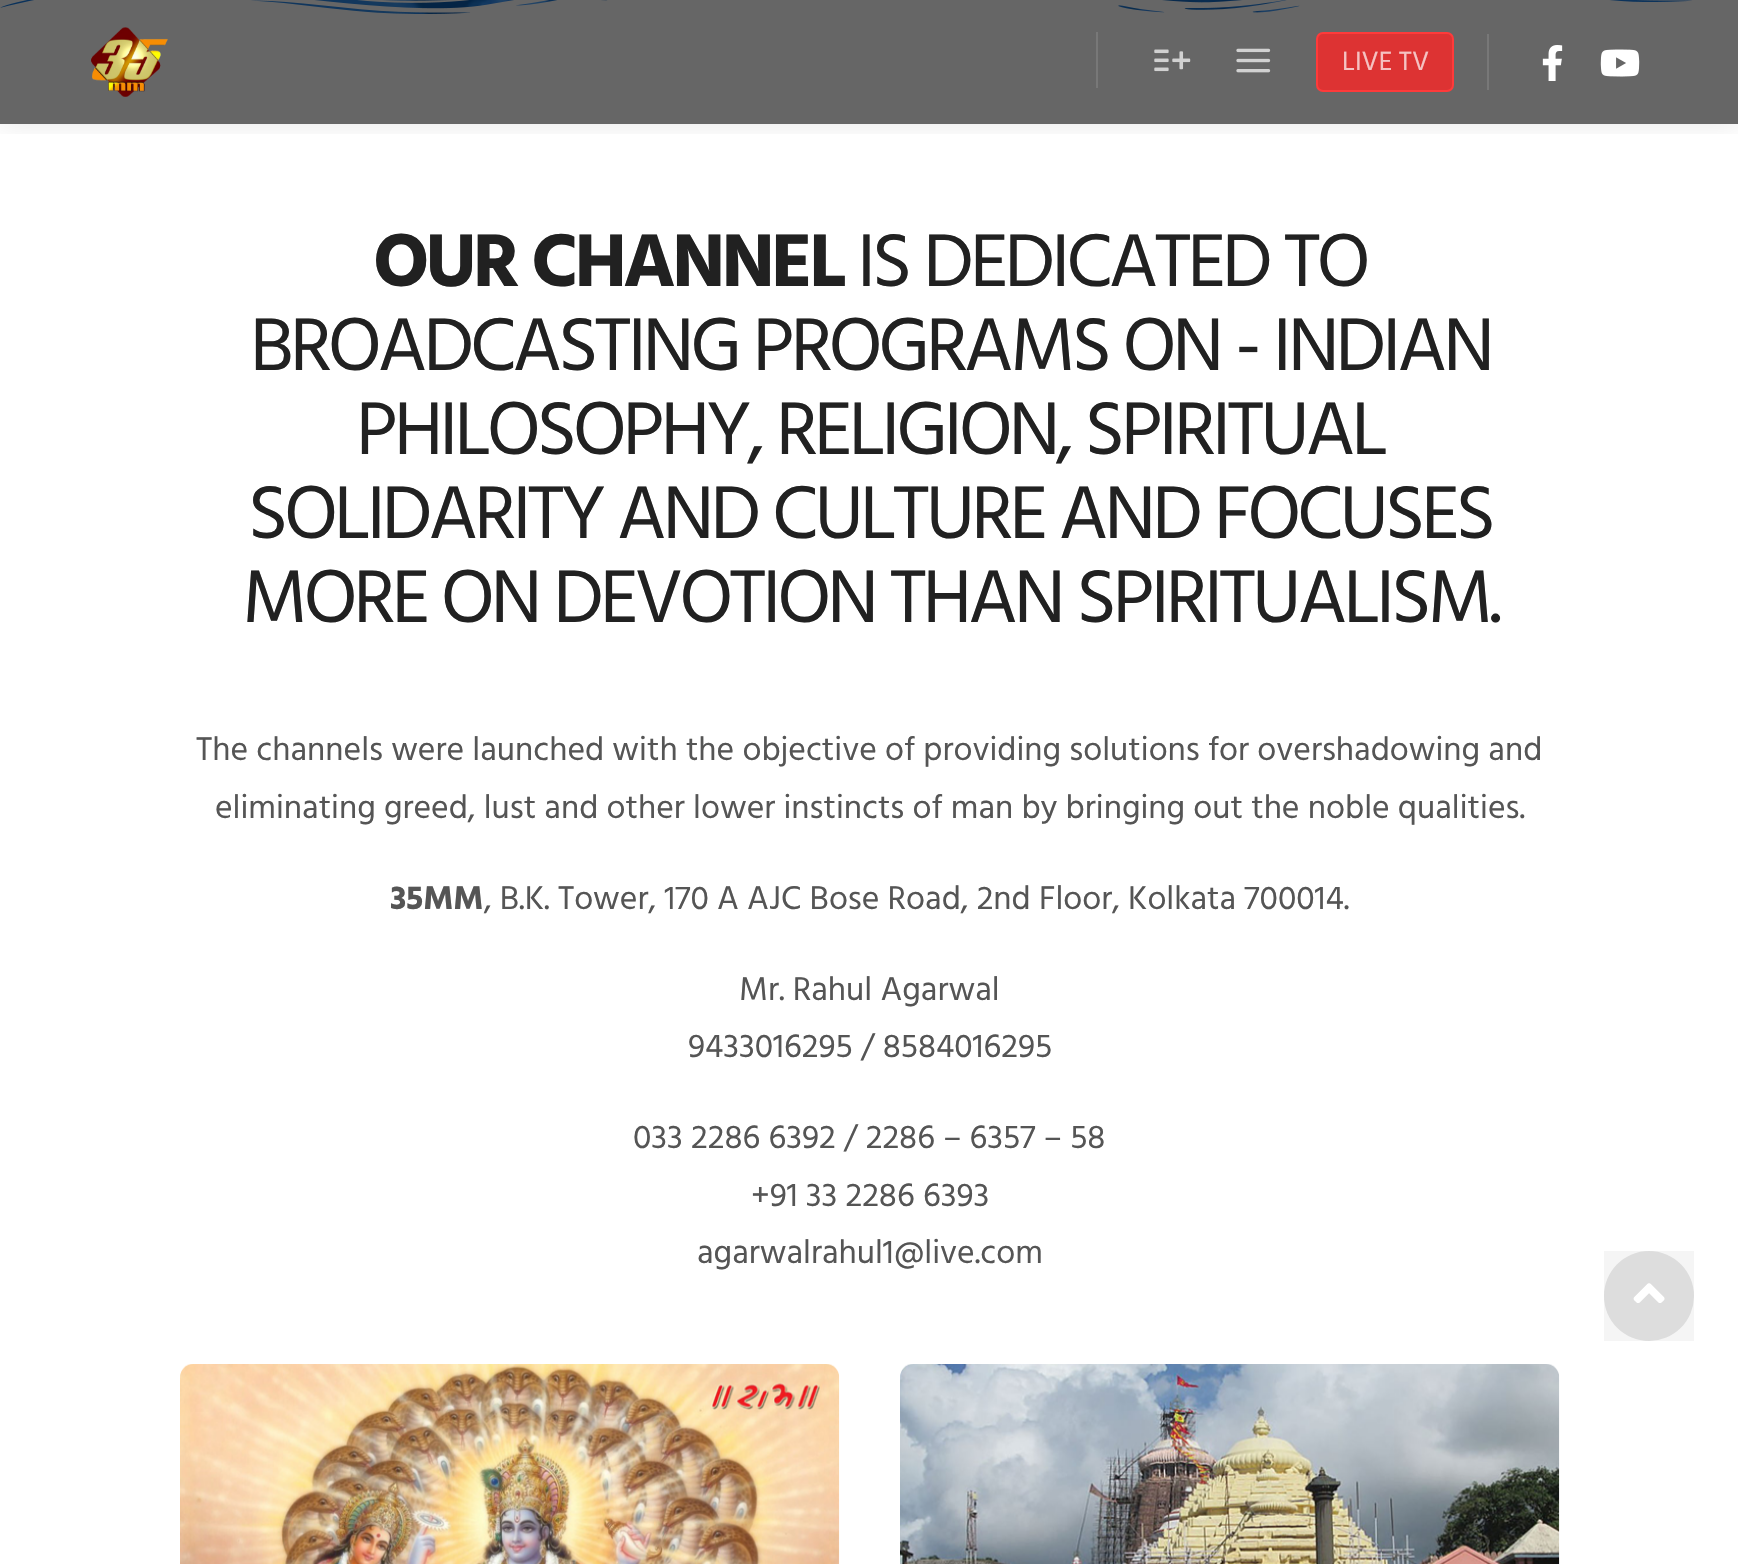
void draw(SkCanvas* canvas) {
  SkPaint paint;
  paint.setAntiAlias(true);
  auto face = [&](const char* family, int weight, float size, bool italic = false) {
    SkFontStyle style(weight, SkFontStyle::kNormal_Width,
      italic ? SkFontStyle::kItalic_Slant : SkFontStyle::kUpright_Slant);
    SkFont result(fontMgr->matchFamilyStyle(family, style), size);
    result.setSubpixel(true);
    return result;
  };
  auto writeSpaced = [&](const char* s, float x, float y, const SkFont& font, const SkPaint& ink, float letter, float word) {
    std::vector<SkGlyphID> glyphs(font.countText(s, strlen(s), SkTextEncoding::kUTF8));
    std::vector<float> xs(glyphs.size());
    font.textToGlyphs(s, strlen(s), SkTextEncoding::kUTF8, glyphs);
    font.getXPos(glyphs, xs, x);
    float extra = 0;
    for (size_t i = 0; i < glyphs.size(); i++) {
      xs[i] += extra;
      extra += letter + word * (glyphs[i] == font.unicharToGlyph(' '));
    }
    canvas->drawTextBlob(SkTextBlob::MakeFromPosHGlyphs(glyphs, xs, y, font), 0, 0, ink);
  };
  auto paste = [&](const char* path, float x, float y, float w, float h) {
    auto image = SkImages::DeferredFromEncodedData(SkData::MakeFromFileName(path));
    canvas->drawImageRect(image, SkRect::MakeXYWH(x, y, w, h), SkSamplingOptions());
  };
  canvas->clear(0xffffffff);
  paste("img/6.png", 0, 0, 1693, 14);
  paste("img/7.png", 0, 0, 1738, 23);
  canvas->save();
  canvas->clipRect(SkRect::MakeXYWH(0, 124, 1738, 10));
  paint.setColor(0x17000000);
  paint.setMaskFilter(SkMaskFilter::MakeBlur(kNormal_SkBlurStyle, 13.5f));
  canvas->drawRect(SkRect::MakeXYWH(0, 0, 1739, 124), paint);
  paint.setMaskFilter(nullptr);
  canvas->restore();
  paint.setColor(0x99000000);
  canvas->drawRect(SkRect::MakeXYWH(0, 0, 1738, 124), paint);
  paste("img/1.png", 91, 27, 77, 70);
  paint.setColor(0xff787878);
  canvas->drawRect(SkRect::MakeXYWH(1096, 32, 2, 56), paint);
  paste("img/2.png", 1154, 49, 37, 23);
  paste("img/3.png", 1236, 48, 35, 25);
  paint.setColor(0xffdd3333);
  canvas->drawRoundRect(SkRect::MakeXYWH(1317, 33, 136, 58), 6, 6, paint);
  paint.setStroke(true);
  paint.setStrokeWidth(2);
  paint.setColor(0xffff3a3a);
  canvas->drawRoundRect(SkRect::MakeXYWH(1317, 33, 136, 58), 6, 6, paint);
  paint.setStroke(false);
  paint.setColor(0xff787878);
  canvas->drawRect(SkRect::MakeXYWH(1487, 34, 2, 56), paint);
  paste("img/4.png", 1542, 45, 21, 36);
  paste("img/5.png", 1600, 49, 40, 28);
  paste("img/8.png", 180, 1364, 660, 200);
  paste("img/9.png", 900, 1364, 660, 200);
  paint.setColor(0xffe6e6e6);
  canvas->drawCircle(1649, 1296, 45, paint);
  paint.setColor(0x0a000000);
  canvas->drawRect(SkRect::MakeXYWH(1604, 1251, 90, 90), paint);
  paste("img/10.png", 1633, 1283, 32, 20);
  auto f0 = face("Hind", 400, 27);
  paint.setColor(0xfff5c2c2);
  canvas->drawString("LIVE TV", 1342, 70, f0, paint);
  auto f1 = face("Hind", 700, 76.5f);
  paint.setColor(0xff212121);
  writeSpaced("OUR CHANNEL", 373, 286, f1, paint, -3.8f, 0);
  auto f2 = face("Hind", 400, 76.5f);
  {
    const struct { const char* s; float x, y; } items[] = {
      {"IS DEDICATED TO", 857, 286},
      {"BROADCASTING PROGRAMS ON - INDIAN", 250, 370},
      {"PHILOSOPHY, RELIGION, SPIRITUAL", 356, 454},
      {"SOLIDARITY AND CULTURE AND FOCUSES", 248, 538},
      {"MORE ON DEVOTION THAN SPIRITUALISM.", 242, 622},
    };
    for (auto [s, x, y] : items) {
      writeSpaced(s, x, y, f2, paint, -3.8f, 0);
    }
  }
  auto f3 = face("Hind", 400, 33.75f);
  paint.setColor(0xff555555);
  canvas->drawString("The channels were launched with the objective of providing solutions for overshadowing and", 196, 760, f3, paint);
  canvas->drawString("eliminating greed, lust and other lower instincts of man by bringing out the noble qualities.", 215, 818, f3, paint);
  auto f4 = face("Hind", 700, 33.75f);
  canvas->drawString("35MM", 390, 909, f4, paint);
  {
    const struct { const char* s; float x, y; } items[] = {
      {", B.K. Tower, 170 A AJC Bose Road, 2nd Floor, Kolkata 700014.", 484, 909},
      {"Mr. Rahul Agarwal", 739, 1000},
      {"9433016295 / 8584016295", 688, 1057},
      {"033 2286 6392 / 2286 – 6357 – 58", 633, 1148},
      {"+91 33 2286 6393", 751, 1206},
      {"agarwalrahul1@live.com", 697, 1263},
    };
    for (auto [s, x, y] : items) {
      canvas->drawString(s, x, y, f3, paint);
    }
  }
}
